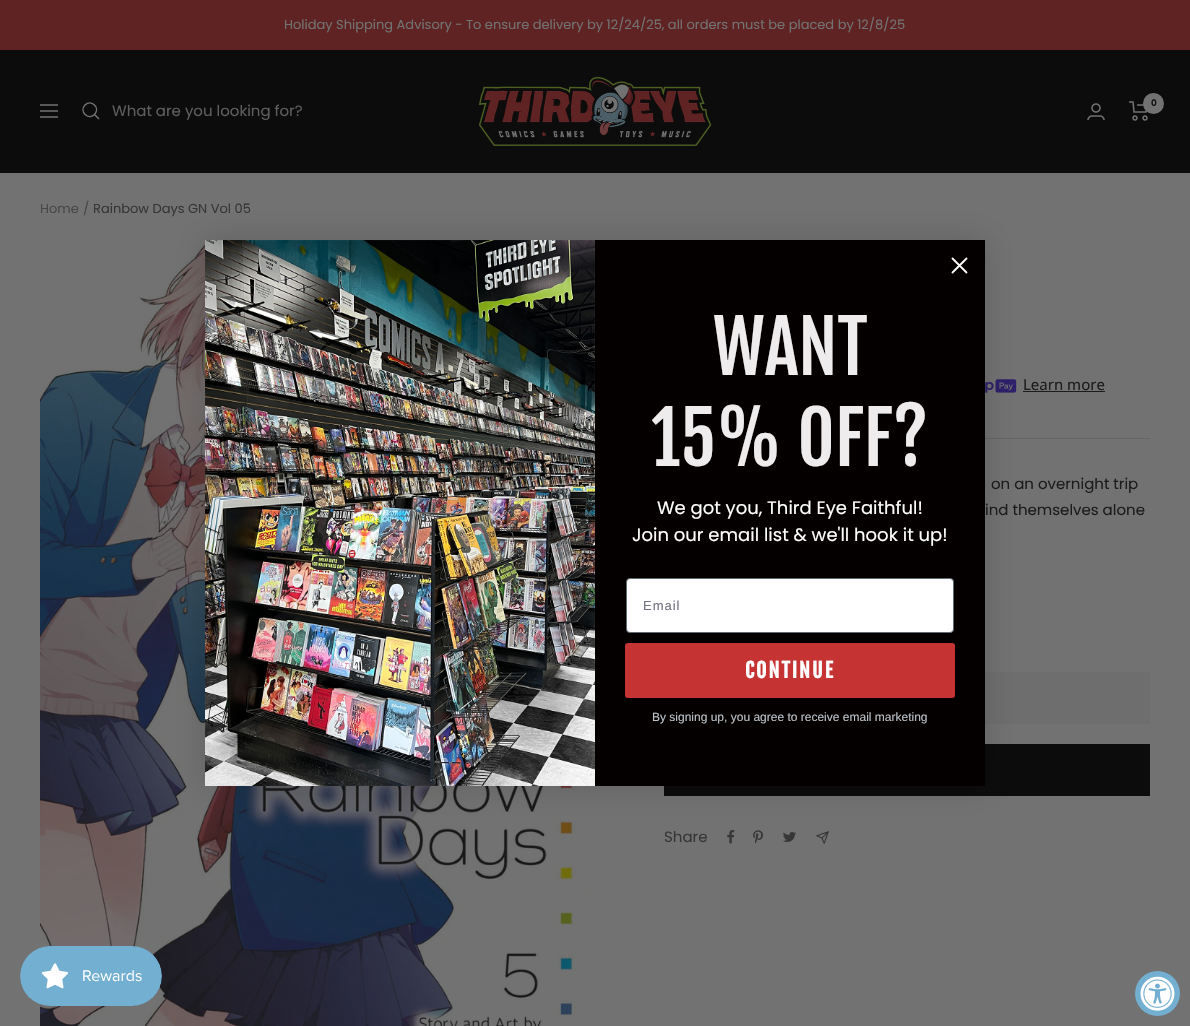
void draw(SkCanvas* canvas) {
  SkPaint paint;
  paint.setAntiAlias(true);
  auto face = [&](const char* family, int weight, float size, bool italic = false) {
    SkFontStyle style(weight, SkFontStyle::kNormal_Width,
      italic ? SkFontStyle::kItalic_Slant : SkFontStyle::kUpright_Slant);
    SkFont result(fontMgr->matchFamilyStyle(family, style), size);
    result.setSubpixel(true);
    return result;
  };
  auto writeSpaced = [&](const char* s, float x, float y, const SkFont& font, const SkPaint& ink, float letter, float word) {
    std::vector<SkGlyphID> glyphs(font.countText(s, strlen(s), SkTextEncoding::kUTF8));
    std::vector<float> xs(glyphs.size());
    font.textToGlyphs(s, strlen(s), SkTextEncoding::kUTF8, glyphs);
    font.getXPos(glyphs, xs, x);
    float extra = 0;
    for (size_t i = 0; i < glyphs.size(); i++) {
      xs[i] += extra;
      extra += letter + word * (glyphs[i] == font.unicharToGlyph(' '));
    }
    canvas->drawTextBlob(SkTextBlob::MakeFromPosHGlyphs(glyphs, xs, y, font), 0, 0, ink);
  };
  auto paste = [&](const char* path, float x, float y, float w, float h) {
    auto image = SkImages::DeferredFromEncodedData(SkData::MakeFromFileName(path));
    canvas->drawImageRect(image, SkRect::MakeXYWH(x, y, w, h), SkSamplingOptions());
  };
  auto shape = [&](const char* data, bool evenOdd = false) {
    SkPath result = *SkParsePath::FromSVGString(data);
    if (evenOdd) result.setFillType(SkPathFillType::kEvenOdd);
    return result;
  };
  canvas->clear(0xff727272);
  paint.setColor(0xff602323);
  canvas->drawRect(SkRect::MakeXYWH(0, 0, 1190, 50), paint);
  paint.setColor(0xff0c0c0c);
  canvas->drawRect(SkRect::MakeXYWH(0, 50, 1190, 123), paint);
  paste("img/1.png", 478, 76, 234, 70);
  paste("img/2.png", 1087, 103, 18, 17);
  paste("img/3.png", 1129, 101, 19, 20);
  paint.setColor(0xff727272);
  canvas->drawCircle(1153.5f, 103.5f, 10.5f, paint);
  paint.setStroke(true);
  paint.setStrokeWidth(1.5f);
  canvas->drawPath(shape("M94.5 114.5C100.5 108 91.5 99 85 105C79 111.5 88 120.5 94.5 114.5ZM94.5 114.5L99 119M40 105H58M40 117H58ZM40 111H58Z"), paint);
  paste("img/4.png", 40, 245, 567, 781);
  paint.setStroke(false);
  paint.setColor(0xff656565);
  canvas->drawRect(SkRect::MakeXYWH(985, 438, 165, 1), paint);
  paste("img/5.png", 985, 379, 32, 14);
  {
    const struct { float x, y, w, h; SkColor color; } items[] = {
      {1023, 391, 82, 1, 0xff1c1c1c},
      {985, 672, 165, 52, 0xff6e6e6e},
      {664, 744, 486, 52, 0xff0c0c0c},
    };
    for (auto [x, y, w, h, color] : items) {
      paint.setColor(color);
      canvas->drawRect(SkRect::MakeXYWH(x, y, w, h), paint);
    }
  }
  paste("img/6.png", 727, 830, 8, 14);
  paste("img/7.png", 753, 830, 10, 14);
  paste("img/8.png", 783, 832, 13, 10);
  paste("img/9.png", 816, 831, 13, 13);
  paint.setColor(0x26000000);
  paint.setMaskFilter(SkMaskFilter::MakeBlur(kNormal_SkBlurStyle, 15));
  canvas->drawRect(SkRect::MakeXYWH(205, 240, 780, 546), paint);
  paint.setMaskFilter(nullptr);
  paint.setColor(0xff050000);
  canvas->drawRect(SkRect::MakeXYWH(595, 240, 390, 546), paint);
  paint.setStroke(true);
  paint.setStrokeWidth(1.8f);
  paint.setStrokeCap(SkPaint::kRound_Cap);
  paint.setStrokeJoin(SkPaint::kRound_Join);
  paint.setColor(0xffffffff);
  canvas->drawPath(shape("M952.5 258.5L966.5 272.5M952.5 272.5L966.5 258.5Z"), paint);
  paste("img/10.png", 205, 240, 390, 546);
  paint.setStroke(false);
  canvas->drawRoundRect(SkRect::MakeXYWH(626.5f, 578.5f, 327, 54), 3.5f, 3.5f, paint);
  paint.setStroke(true);
  paint.setStrokeWidth(1);
  paint.setStrokeCap(SkPaint::kButt_Cap);
  paint.setStrokeJoin(SkPaint::kMiter_Join);
  paint.setColor(0xff606a72);
  canvas->drawRoundRect(SkRect::MakeXYWH(626.5f, 578.5f, 327, 54), 3.5f, 3.5f, paint);
  paint.setStroke(false);
  paint.setColor(0xffc53333);
  canvas->drawRoundRect(SkRect::MakeXYWH(625, 643, 330, 55), 3, 3, paint);
  paste("img/11.png", 20, 946, 142, 60);
  paint.setColor(0xff73afd1);
  canvas->drawCircle(1157.5f, 993.5f, 22.5f, paint);
  paste("img/12.png", 1140, 976, 35, 35);
  auto f0 = face("Poppins", 400, 13);
  paint.setColor(0xff727272);
  canvas->drawString("Holiday Shipping Advisory - To ensure delivery by 12/24/25, all orders must be placed by 12/8/25", 284, 29, f0, paint);
  auto f1 = face("Poppins", 600, 9);
  paint.setColor(0xff0c0c0c);
  canvas->drawString("0", 1151, 106, f1, paint);
  auto f2 = face("Poppins", 400, 15);
  paint.setColor(0xff5e5e5e);
  canvas->drawString("What are you looking for?", 112, 116, f2, paint);
  paint.setColor(0xff484848);
  canvas->drawString("Home", 40, 213, f0, paint);
  canvas->drawString("/", 83, 213, f0, paint);
  paint.setColor(0xff363636);
  canvas->drawString("Rainbow Days GN Vol 05", 93, 213, f0, paint);
  auto f3 = face("Noto Sans", 400, 15);
  paint.setColor(0xff1c1c1c);
  canvas->drawString("Learn more", 1023, 390, f3, paint);
  canvas->drawString("on an overnight trip", 991, 489, f2, paint);
  canvas->drawString("ind themselves alone", 985, 515, f2, paint);
  paint.setColor(0xff363636);
  canvas->drawString("Share", 664, 842, f2, paint);
  auto f4 = face("Fjalla One", 400, 72);
  paint.setColor(0xffeeecec);
  canvas->drawString("WANT", 713, 375, f4, paint);
  canvas->drawString("15% OFF?", 651, 466, f4, paint);
  auto f5 = face("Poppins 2", 400, 18);
  paint.setColor(0xffffffff);
  canvas->drawString("We got you, Third Eye Faithful!", 657, 514, f5, paint);
  canvas->drawString("Join our email list & we'll hook it up!", 632, 541, f5, paint);
  auto f6 = face("Liberation Sans", 400, 13);
  paint.setColor(0xff71727f);
  writeSpaced("Email", 643, 610, f6, paint, 1, 0);
  auto f7 = face("Fjalla One", 700, 20);
  paint.setColor(0xffffffff);
  writeSpaced("CONTINUE", 745, 678, f7, paint, 2, 0);
  auto f8 = face("Liberation Sans", 400, 12);
  paint.setColor(0xffbac1c7);
  canvas->drawString("By signing up, you agree to receive email marketing", 652, 721, f8, paint);
}
